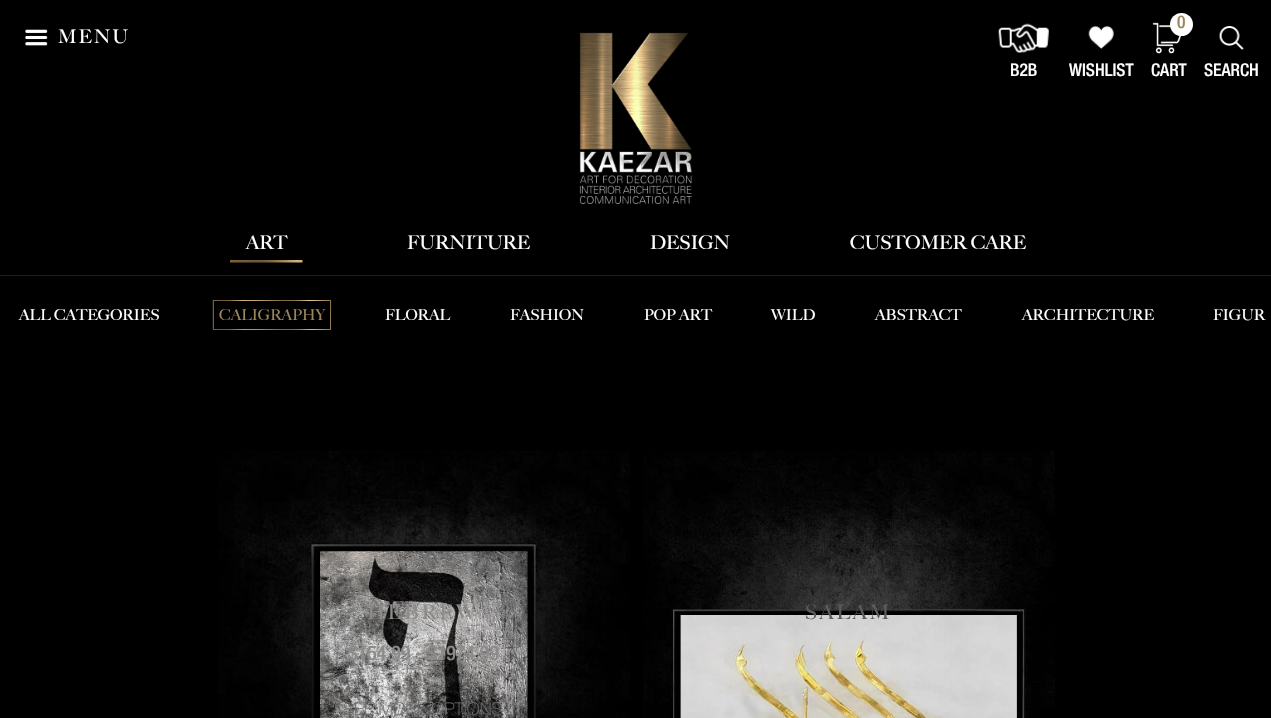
void draw(SkCanvas* canvas) {
  SkPaint paint;
  paint.setAntiAlias(true);
  auto face = [&](const char* family, int weight, float size, bool italic = false) {
    SkFontStyle style(weight, SkFontStyle::kNormal_Width,
      italic ? SkFontStyle::kItalic_Slant : SkFontStyle::kUpright_Slant);
    SkFont result(fontMgr->matchFamilyStyle(family, style), size);
    result.setSubpixel(true);
    return result;
  };
  auto writeSpaced = [&](const char* s, float x, float y, const SkFont& font, const SkPaint& ink, float letter, float word) {
    std::vector<SkGlyphID> glyphs(font.countText(s, strlen(s), SkTextEncoding::kUTF8));
    std::vector<float> xs(glyphs.size());
    font.textToGlyphs(s, strlen(s), SkTextEncoding::kUTF8, glyphs);
    font.getXPos(glyphs, xs, x);
    float extra = 0;
    for (size_t i = 0; i < glyphs.size(); i++) {
      xs[i] += extra;
      extra += letter + word * (glyphs[i] == font.unicharToGlyph(' '));
    }
    canvas->drawTextBlob(SkTextBlob::MakeFromPosHGlyphs(glyphs, xs, y, font), 0, 0, ink);
  };
  auto paste = [&](const char* path, float x, float y, float w, float h) {
    auto image = SkImages::DeferredFromEncodedData(SkData::MakeFromFileName(path));
    canvas->drawImageRect(image, SkRect::MakeXYWH(x, y, w, h), SkSamplingOptions());
  };
  canvas->clear(0xff000000);
  paste("img/1.png", 25, 29, 23, 17);
  paste("img/2.png", 998, 23, 51, 30);
  paste("img/3.png", 1088, 26, 26, 23);
  paste("img/4.png", 1152, 22, 30, 32);
  paint.setColor(0xffffffff);
  canvas->drawCircle(1181.5f, 24.5f, 11.5f, paint);
  paste("img/5.png", 1218, 26, 26, 24);
  paste("img/6.png", 579, 32, 113, 172);
  paste("img/7.png", 230, 260, 73, 3);
  paint.setColor(0xff1f1e1e);
  canvas->drawRect(SkRect::MakeXYWH(0, 275, 1271, 1), paint);
  paste("img/8.png", 212, 300, 120, 30);
  paint.setColor(0xff000000);
  canvas->drawRect(SkRect::MakeXYWH(214, 301, 116, 28), paint);
  paste("img/9.png", 218, 451, 412, 267);
  paste("img/10.png", 320, 551, 208, 167);
  paste("img/11.png", 643, 451, 412, 1);
  paste("img/12.png", 643, 451, 412, 267);
  paste("img/13.png", 680, 615, 337, 103);
  auto f0 = face("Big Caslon", 500, 18.75f);
  paint.setColor(0xffffffff);
  writeSpaced("MENU", 58, 43, f0, paint, 2, 0);
  auto f1 = face("Helvetica Neue", 500, 17.5f);
  canvas->drawString("B2B", 1010, 76, f1, paint);
  canvas->drawString("WISHLIST", 1069, 76, f1, paint);
  paint.setColor(0xff9a855c);
  canvas->drawString("0", 1177, 28, f1, paint);
  paint.setColor(0xffffffff);
  canvas->drawString("CART", 1151, 76, f1, paint);
  canvas->drawString("SEARCH", 1204, 76, f1, paint);
  {
    const struct { const char* s; float x, y; } items[] = {
      {"ART", 246, 249},
      {"FURNITURE", 407, 249},
      {"DESIGN", 650, 249},
      {"CUSTOMER CARE", 850, 249},
    };
    for (auto [s, x, y] : items) {
      canvas->drawString(s, x, y, f0, paint);
    }
  }
  auto f2 = face("Big Caslon", 500, 15);
  canvas->drawString("ALL CATEGORIES", 19, 320, f2, paint);
  paint.setColor(0xff9a855c);
  canvas->drawString("CALIGRAPHY", 219, 320, f2, paint);
  paint.setColor(0xffffffff);
  {
    const struct { const char* s; float x, y; } items[] = {
      {"FLORAL", 385, 320},
      {"FASHION", 510, 320},
      {"POP ART", 644, 320},
      {"WILD", 771, 320},
      {"ABSTRACT", 875, 320},
      {"ARCHITECTURE", 1022, 320},
      {"FIGUR", 1213, 320},
    };
    for (auto [s, x, y] : items) {
      canvas->drawString(s, x, y, f2, paint);
    }
  }
  auto f3 = face("Big Caslon", 500, 20);
  paint.setColor(0xff8c8b8a);
  writeSpaced("HEBREW", 367, 619, f3, paint, 2.5f, 0);
  auto f4 = face("Helvetica Neue", 500, 20);
  canvas->drawString("$154.99 - $1974.99", 348, 660, f4, paint);
  auto f5 = face("Helvetica Neue", 100, 17.5f);
  paint.setColor(0xff6b6b6a);
  canvas->drawString("SEE MORE OPTIONS", 343, 715, f5, paint);
  paint.setColor(0xff5c5c5c);
  writeSpaced("SALAM", 805, 619, f3, paint, 2.5f, 0);
}
